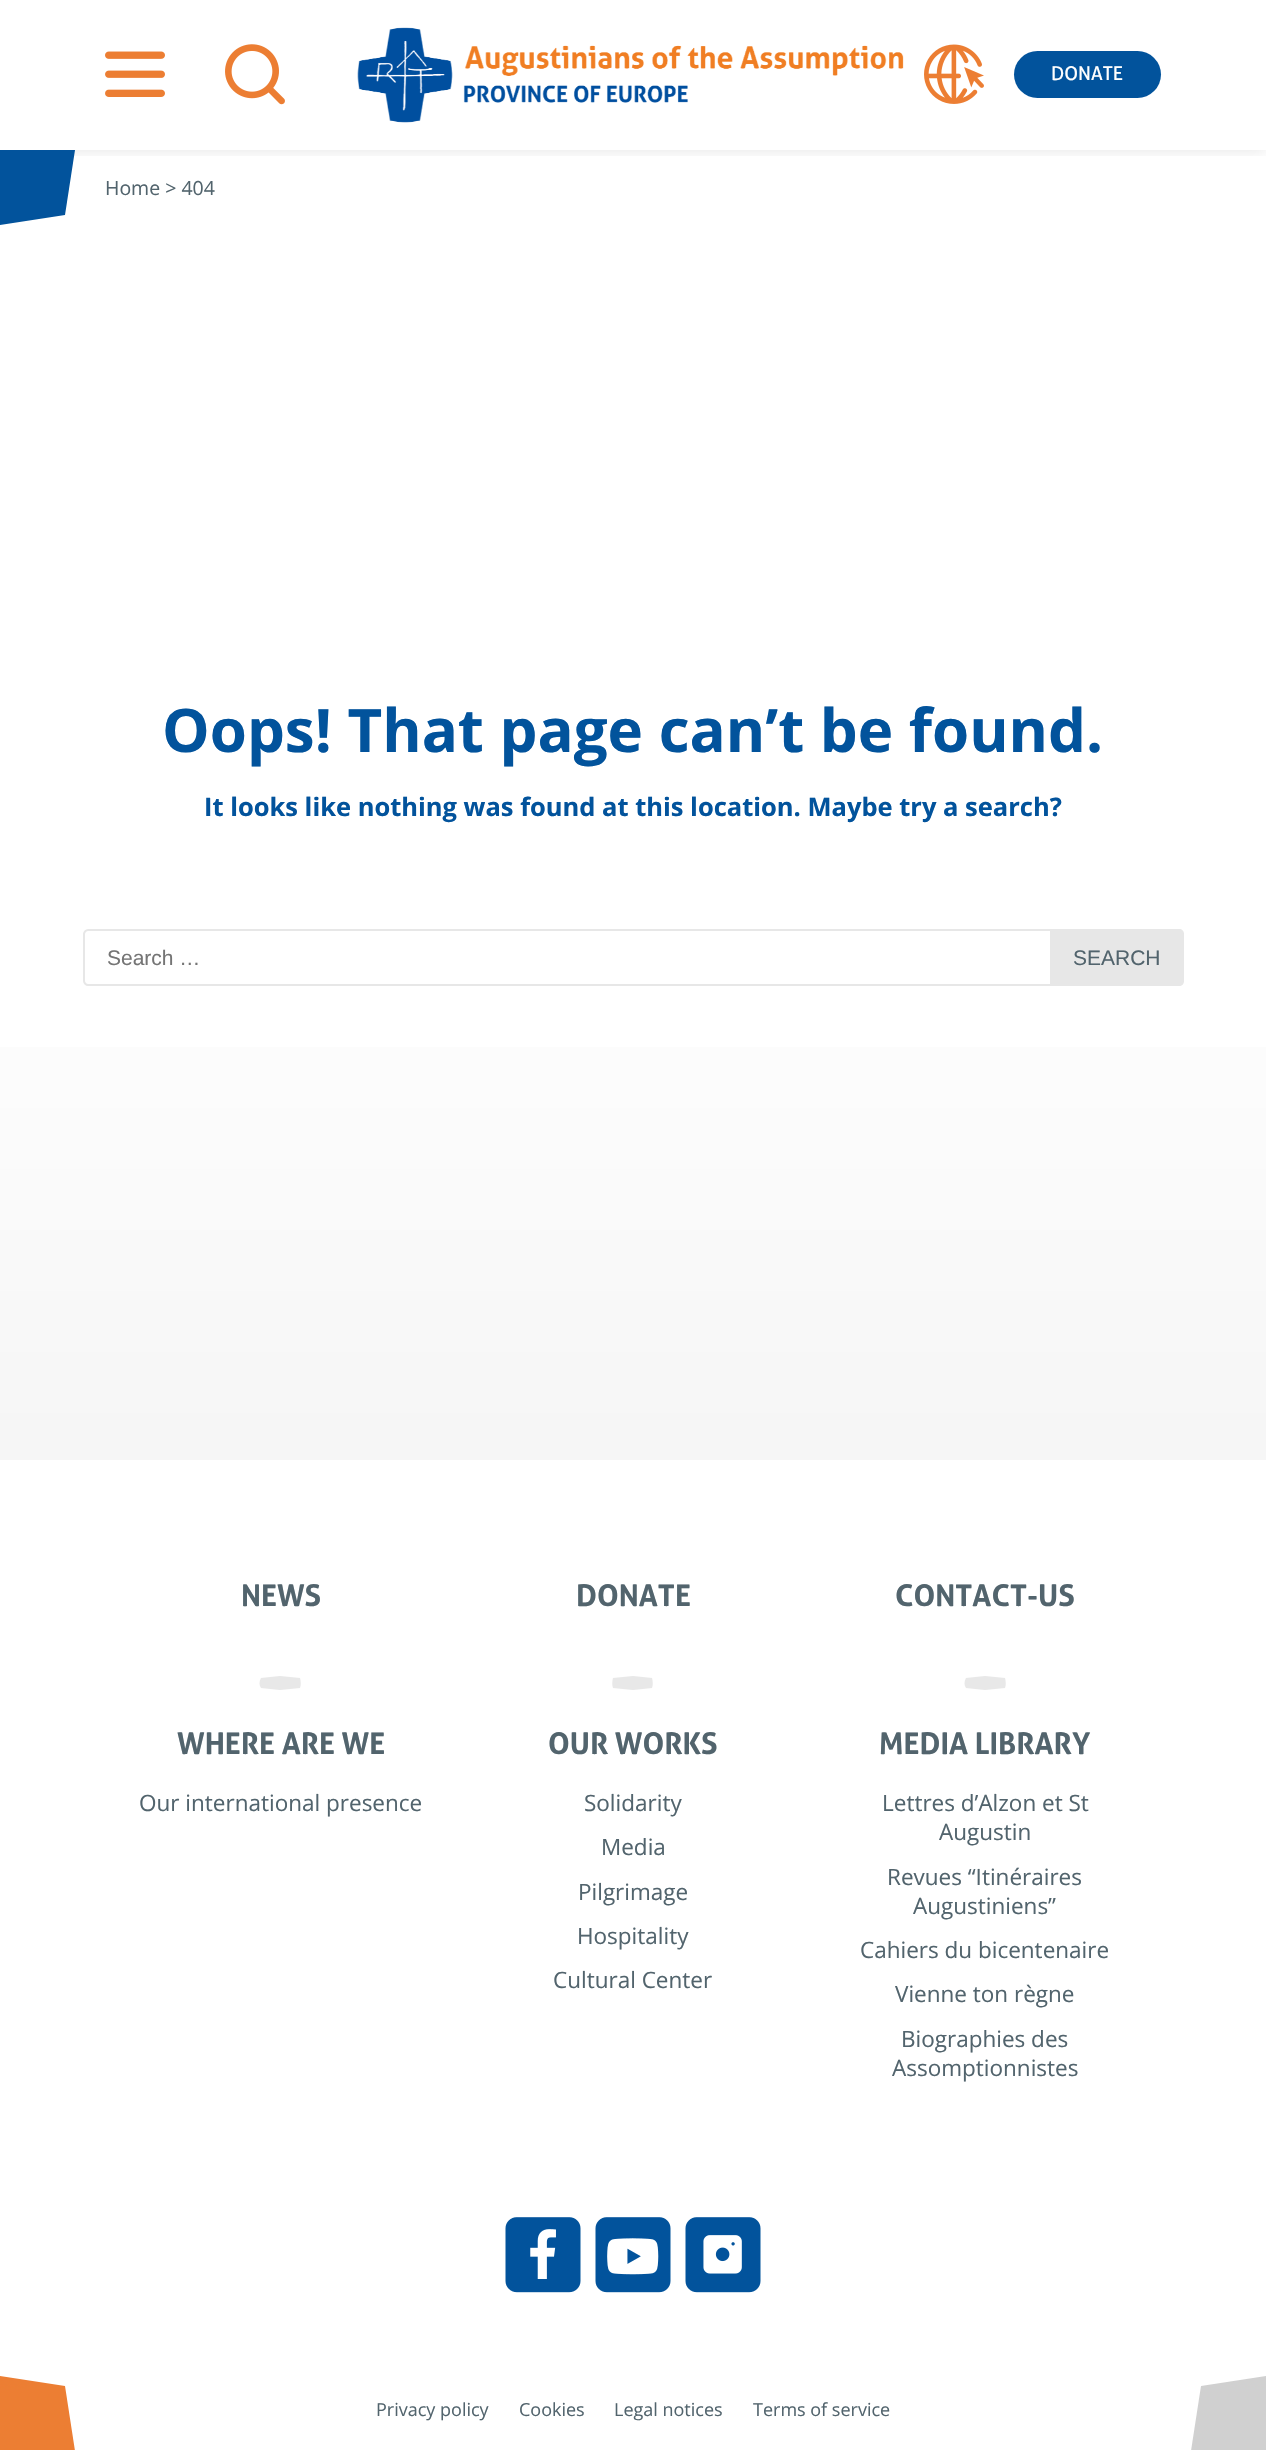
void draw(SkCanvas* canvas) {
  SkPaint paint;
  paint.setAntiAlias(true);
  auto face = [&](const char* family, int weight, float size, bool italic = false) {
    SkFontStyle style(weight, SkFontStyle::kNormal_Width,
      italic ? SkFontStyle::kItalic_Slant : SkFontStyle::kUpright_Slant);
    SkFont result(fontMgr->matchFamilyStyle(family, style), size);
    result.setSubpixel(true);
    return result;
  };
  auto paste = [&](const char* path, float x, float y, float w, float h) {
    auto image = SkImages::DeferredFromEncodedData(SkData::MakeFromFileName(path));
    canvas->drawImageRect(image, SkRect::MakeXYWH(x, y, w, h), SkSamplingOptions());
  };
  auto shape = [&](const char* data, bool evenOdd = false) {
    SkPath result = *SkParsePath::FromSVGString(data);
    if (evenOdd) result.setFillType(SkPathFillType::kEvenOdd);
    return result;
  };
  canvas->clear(0xffffffff);
  canvas->save();
  canvas->clipRect(SkRect::MakeXYWH(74, 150, 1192, 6));
  paint.setColor(0x1a000000);
  paint.setMaskFilter(SkMaskFilter::MakeBlur(kNormal_SkBlurStyle, 7.5f));
  canvas->drawRect(SkRect::MakeXYWH(0, 0, 1266, 150), paint);
  paint.setMaskFilter(nullptr);
  canvas->restore();
  paste("img/1.png", 357, 27, 547, 96);
  paste("img/2.png", 105, 51, 60, 46);
  paste("img/3.png", 225, 44, 60, 61);
  paste("img/4.png", 924, 44, 60, 60);
  paint.setColor(0xff02539c);
  canvas->drawRoundRect(SkRect::MakeXYWH(1014, 51, 147, 47), 23.5f, 23.5f, paint);
  canvas->drawPath(shape("M0 150V225L65 215L75 150Z"), paint);
  {
    const SkColor colors[] = {0xffffffff, 0xfff4f4f4};
    const float stops[] = {0.5f, 1};
    const SkPoint ends[] = {{633, 225}, {633, 1565}};
    paint.setShader(SkGradientShader::MakeLinear(ends, colors, stops, 2, SkTileMode::kClamp));
    paint.setAlpha(255);
  }
  canvas->drawRect(SkRect::MakeXYWH(0, 1047, 1266, 413), paint);
  paint.setStroke(true);
  paint.setStrokeWidth(2);
  paint.setShader(nullptr);
  paint.setColor(0xffe7e7e7);
  canvas->drawPath(shape("M88 930H1051V985H88C86 985 84 983 84 981V934C84 932 86 930 88 930Z"), paint);
  paint.setStroke(false);
  canvas->drawPath(shape("M1052 929H1179C1182 929 1184 931 1184 934V981C1184 984 1182 986 1179 986H1052Z"), paint);
  paint.setColor(0xffec7e33);
  canvas->drawPath(shape("M0 2376V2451H75L65 2386Z"), paint);
  paint.setColor(0xffe8e8e8);
  canvas->drawPath(shape("M280 1676L300 1678C301 1682 301 1685 300 1688L280 1690L261 1688C259 1685 259 1682 261 1678Z"), paint);
  canvas->drawPath(shape("M633 1676L652 1678C653 1682 653 1685 652 1688L633 1690L613 1688C612 1685 612 1682 613 1678Z"), paint);
  canvas->drawPath(shape("M985 1676L1005 1678C1006 1682 1006 1685 1005 1688L985 1690L966 1688C964 1685 964 1682 966 1678Z"), paint);
  paste("img/5.png", 505, 2217, 76, 76);
  paste("img/6.png", 595, 2217, 76, 76);
  paste("img/7.png", 685, 2217, 76, 76);
  paint.setColor(0xffd0d0d0);
  canvas->drawPath(shape("M1201 2386L1191 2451H1266V2376Z"), paint);
  auto f0 = face("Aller", 400, 19);
  paint.setColor(0xffffffff);
  canvas->drawString("DONATE", 1051, 80, f0, paint);
  auto f1 = face("Open Sans", 400, 19.5f);
  paint.setColor(0xff52646d);
  canvas->drawString("Home > 404", 105, 195, f1, paint);
  auto f2 = face("Open Sans", 700, 60);
  paint.setColor(0xff02539c);
  canvas->drawString("Oops! That page can’t be found.", 162, 752, f2, paint);
  auto f3 = face("Open Sans", 700, 25.5f);
  canvas->drawString("It looks like nothing was found at this location. Maybe try a search?", 204, 816, f3, paint);
  auto f4 = face("Liberation Sans", 400, 21);
  paint.setColor(0xff757575);
  canvas->drawString("Search …", 107, 965, f4, paint);
  paint.setColor(0xff52646d);
  canvas->drawString("SEARCH", 1073, 965, f4, paint);
  auto f5 = face("Aller", 700, 30);
  {
    const struct { const char* s; float x, y; } items[] = {
      {"NEWS", 241, 1606},
      {"DONATE", 576, 1606},
      {"CONTACT-US", 895, 1606},
      {"WHERE ARE WE", 177, 1754},
    };
    for (auto [s, x, y] : items) {
      canvas->drawString(s, x, y, f5, paint);
    }
  }
  auto f6 = face("Open Sans", 400, 22.5f);
  canvas->drawString("Our international presence", 139, 1811, f6, paint);
  canvas->drawString("OUR WORKS", 548, 1754, f5, paint);
  {
    const struct { const char* s; float x, y; } items[] = {
      {"Solidarity", 584, 1811},
      {"Media", 601, 1855},
      {"Pilgrimage", 578, 1900},
      {"Hospitality", 577, 1944},
      {"Cultural Center", 553, 1988},
    };
    for (auto [s, x, y] : items) {
      canvas->drawString(s, x, y, f6, paint);
    }
  }
  canvas->drawString("MEDIA LIBRARY", 879, 1754, f5, paint);
  {
    const struct { const char* s; float x, y; } items[] = {
      {"Lettres d’Alzon et St", 882, 1811},
      {"Augustin", 939, 1840},
      {"Revues “Itinéraires", 887, 1885},
      {"Augustiniens”", 913, 1914},
      {"Cahiers du bicentenaire", 860, 1958},
      {"Vienne ton règne", 895, 2002},
      {"Biographies des", 901, 2047},
      {"Assomptionnistes", 892, 2076},
    };
    for (auto [s, x, y] : items) {
      canvas->drawString(s, x, y, f6, paint);
    }
  }
  auto f7 = face("Open Sans", 400, 18);
  {
    const struct { const char* s; float x, y; } items[] = {
      {"Privacy policy", 376, 2416},
      {"Cookies", 519, 2416},
      {"Legal notices", 614, 2416},
      {"Terms of service", 753, 2416},
    };
    for (auto [s, x, y] : items) {
      canvas->drawString(s, x, y, f7, paint);
    }
  }
}
